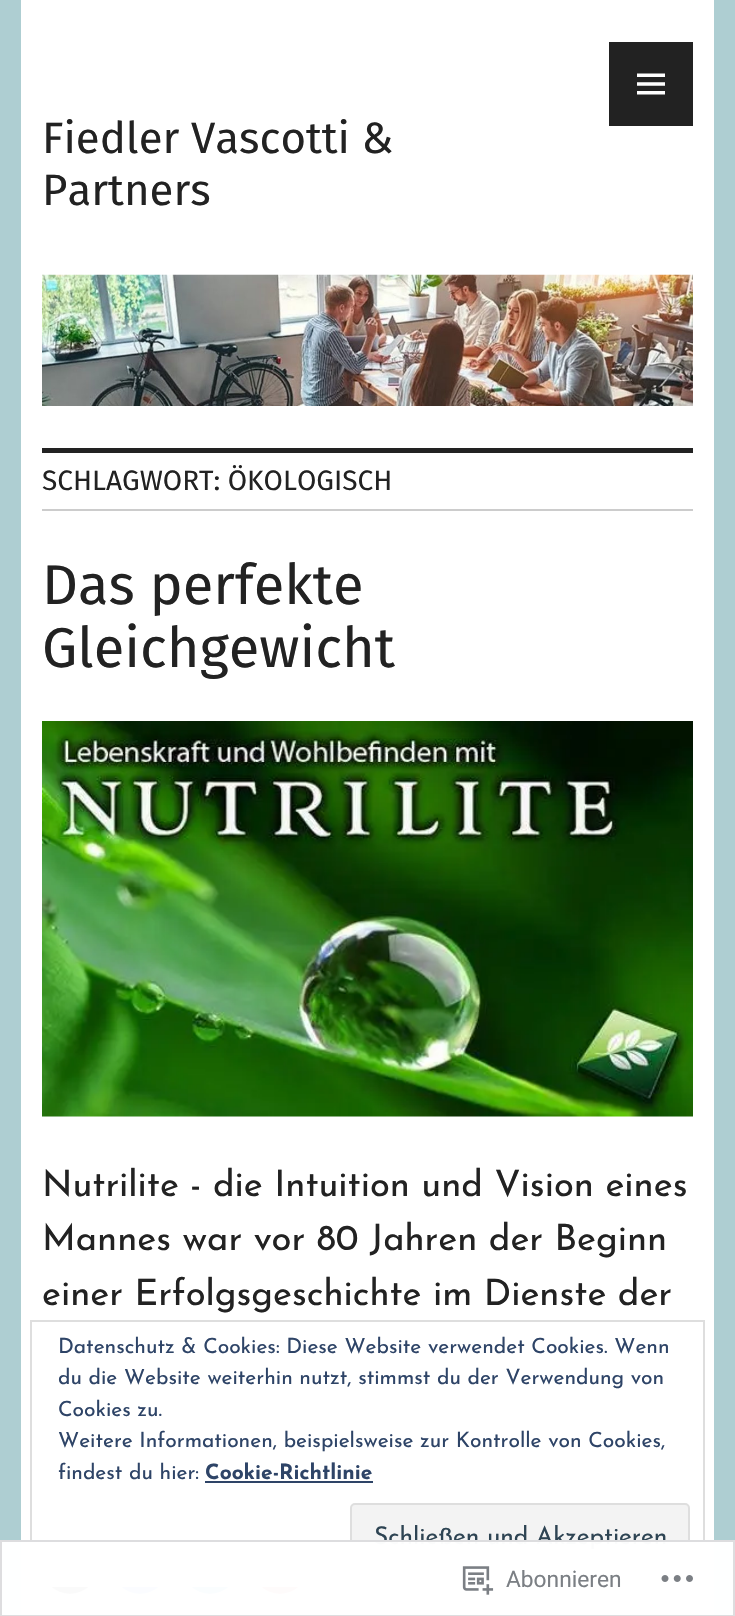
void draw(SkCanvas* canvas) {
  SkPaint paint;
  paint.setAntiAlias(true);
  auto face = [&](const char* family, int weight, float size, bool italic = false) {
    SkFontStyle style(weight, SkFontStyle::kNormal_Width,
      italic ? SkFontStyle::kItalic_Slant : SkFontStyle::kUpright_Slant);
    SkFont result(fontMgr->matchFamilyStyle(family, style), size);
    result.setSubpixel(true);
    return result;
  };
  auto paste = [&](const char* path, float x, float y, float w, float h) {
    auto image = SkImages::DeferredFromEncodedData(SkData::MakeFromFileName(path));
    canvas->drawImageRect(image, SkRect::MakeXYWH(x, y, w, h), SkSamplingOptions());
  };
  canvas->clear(0xffaeced2);
  paint.setColor(0xffffffff);
  canvas->drawRect(SkRect::MakeXYWH(21, 0, 693, 1616), paint);
  paint.setColor(0xff222222);
  canvas->drawRect(SkRect::MakeXYWH(609, 42, 84, 84), paint);
  paste("img/1.png", 637, 73, 28, 22);
  paste("img/2.png", 42, 274, 651, 132);
  canvas->drawRect(SkRect::MakeXYWH(42, 448, 651, 5), paint);
  paint.setColor(0xffcccccc);
  canvas->drawRect(SkRect::MakeXYWH(42, 509, 651, 2), paint);
  paste("img/3.png", 42, 721, 651, 396);
  paint.setColor(0xff000000);
  canvas->drawCircle(70, 1566, 28, paint);
  paint.setColor(0xff0866ff);
  canvas->drawCircle(140, 1566, 28, paint);
  paint.setColor(0xff0077b5);
  canvas->drawCircle(210, 1566, 28, paint);
  paint.setColor(0xffca1f27);
  canvas->drawCircle(280, 1566, 28, paint);
  paint.setColor(0xffe9e9e9);
  canvas->drawCircle(350, 1566, 28, paint);
  canvas->drawCircle(420, 1566, 28, paint);
  paint.setColor(0xffffffff);
  canvas->drawRect(SkRect::MakeXYWH(42, 1538, 406, 47), paint);
  paint.setStroke(true);
  paint.setStrokeWidth(2);
  paint.setColor(0xffdedede);
  canvas->drawRect(SkRect::MakeXYWH(31, 1321, 673, 265), paint);
  paint.setStroke(false);
  paint.setColor(0xff2e4467);
  canvas->drawRect(SkRect::MakeXYWH(205, 1481, 168, 2), paint);
  paint.setColor(0xfff3f3f3);
  canvas->drawRoundRect(SkRect::MakeXYWH(351, 1504, 338, 67), 4, 4, paint);
  paint.setStroke(true);
  paint.setColor(0xffdedede);
  canvas->drawRoundRect(SkRect::MakeXYWH(351, 1504, 338, 67), 4, 4, paint);
  auto f0 = face("Fira Sans", 400, 43.75f);
  paint.setStroke(false);
  paint.setColor(0xff222222);
  canvas->drawString("Fiedler Vascotti &", 42, 153, f0, paint);
  canvas->drawString("Partners", 42, 205, f0, paint);
  auto f1 = face("Fira Sans", 400, 28);
  canvas->drawString("SCHLAGWORT: ÖKOLOGISCH", 42, 490, f1, paint);
  auto f2 = face("Fira Sans", 400, 56);
  canvas->drawString("Das perfekte", 42, 604, f2, paint);
  canvas->drawString("Gleichgewicht", 42, 667, f2, paint);
  auto f3 = face("Josefin Sans", 400, 36.4f);
  {
    const struct { const char* s; float x, y; } items[] = {
      {"Nutrilite - die Intuition und Vision eines", 42, 1196},
      {"Mannes war vor 80 Jahren der Beginn", 42, 1250},
      {"einer Erfolgsgeschichte im Dienste der", 42, 1305},
    };
    for (auto [s, x, y] : items) {
      canvas->drawString(s, x, y, f3, paint);
    }
  }
  auto f4 = face("Josefin Sans", 400, 21);
  paint.setColor(0xff2e4467);
  {
    const struct { const char* s; float x, y; } items[] = {
      {"Datenschutz & Cookies: Diese Website verwendet Cookies. Wenn", 58, 1353},
      {"du die Website weiterhin nutzt, stimmst du der Verwendung von", 58, 1384},
      {"Cookies zu.", 58, 1416},
      {"Weitere Informationen, beispielsweise zur Kontrolle von Cookies,", 58, 1447},
      {"findest du hier:", 58, 1479},
    };
    for (auto [s, x, y] : items) {
      canvas->drawString(s, x, y, f4, paint);
    }
  }
  auto f5 = face("Josefin Sans", 700, 21);
  canvas->drawString("Cookie-Richtlinie", 205, 1479, f5, paint);
  auto f6 = face("Josefin Sans", 400, 24.5f);
  paint.setColor(0xff2e4453);
  canvas->drawString("Schließen und Akzeptieren", 374, 1544, f6, paint);
  paint.setColor(0xfaffffff);
  canvas->drawRect(SkRect::MakeXYWH(0, 1540, 735, 76), paint);
  paint.setStroke(true);
  paint.setColor(0xfadcdcde);
  canvas->drawRect(SkRect::MakeXYWH(1, 1541, 733, 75), paint);
  paste("img/4.png", 462, 1566, 32, 29);
  auto f7 = face("Roboto", 400, 22.75f);
  paint.setStroke(false);
  paint.setColor(0xff7b7f84);
  canvas->drawString("Abonnieren", 506, 1587, f7, paint);
  paste("img/5.png", 661, 1575, 32, 7);
}
